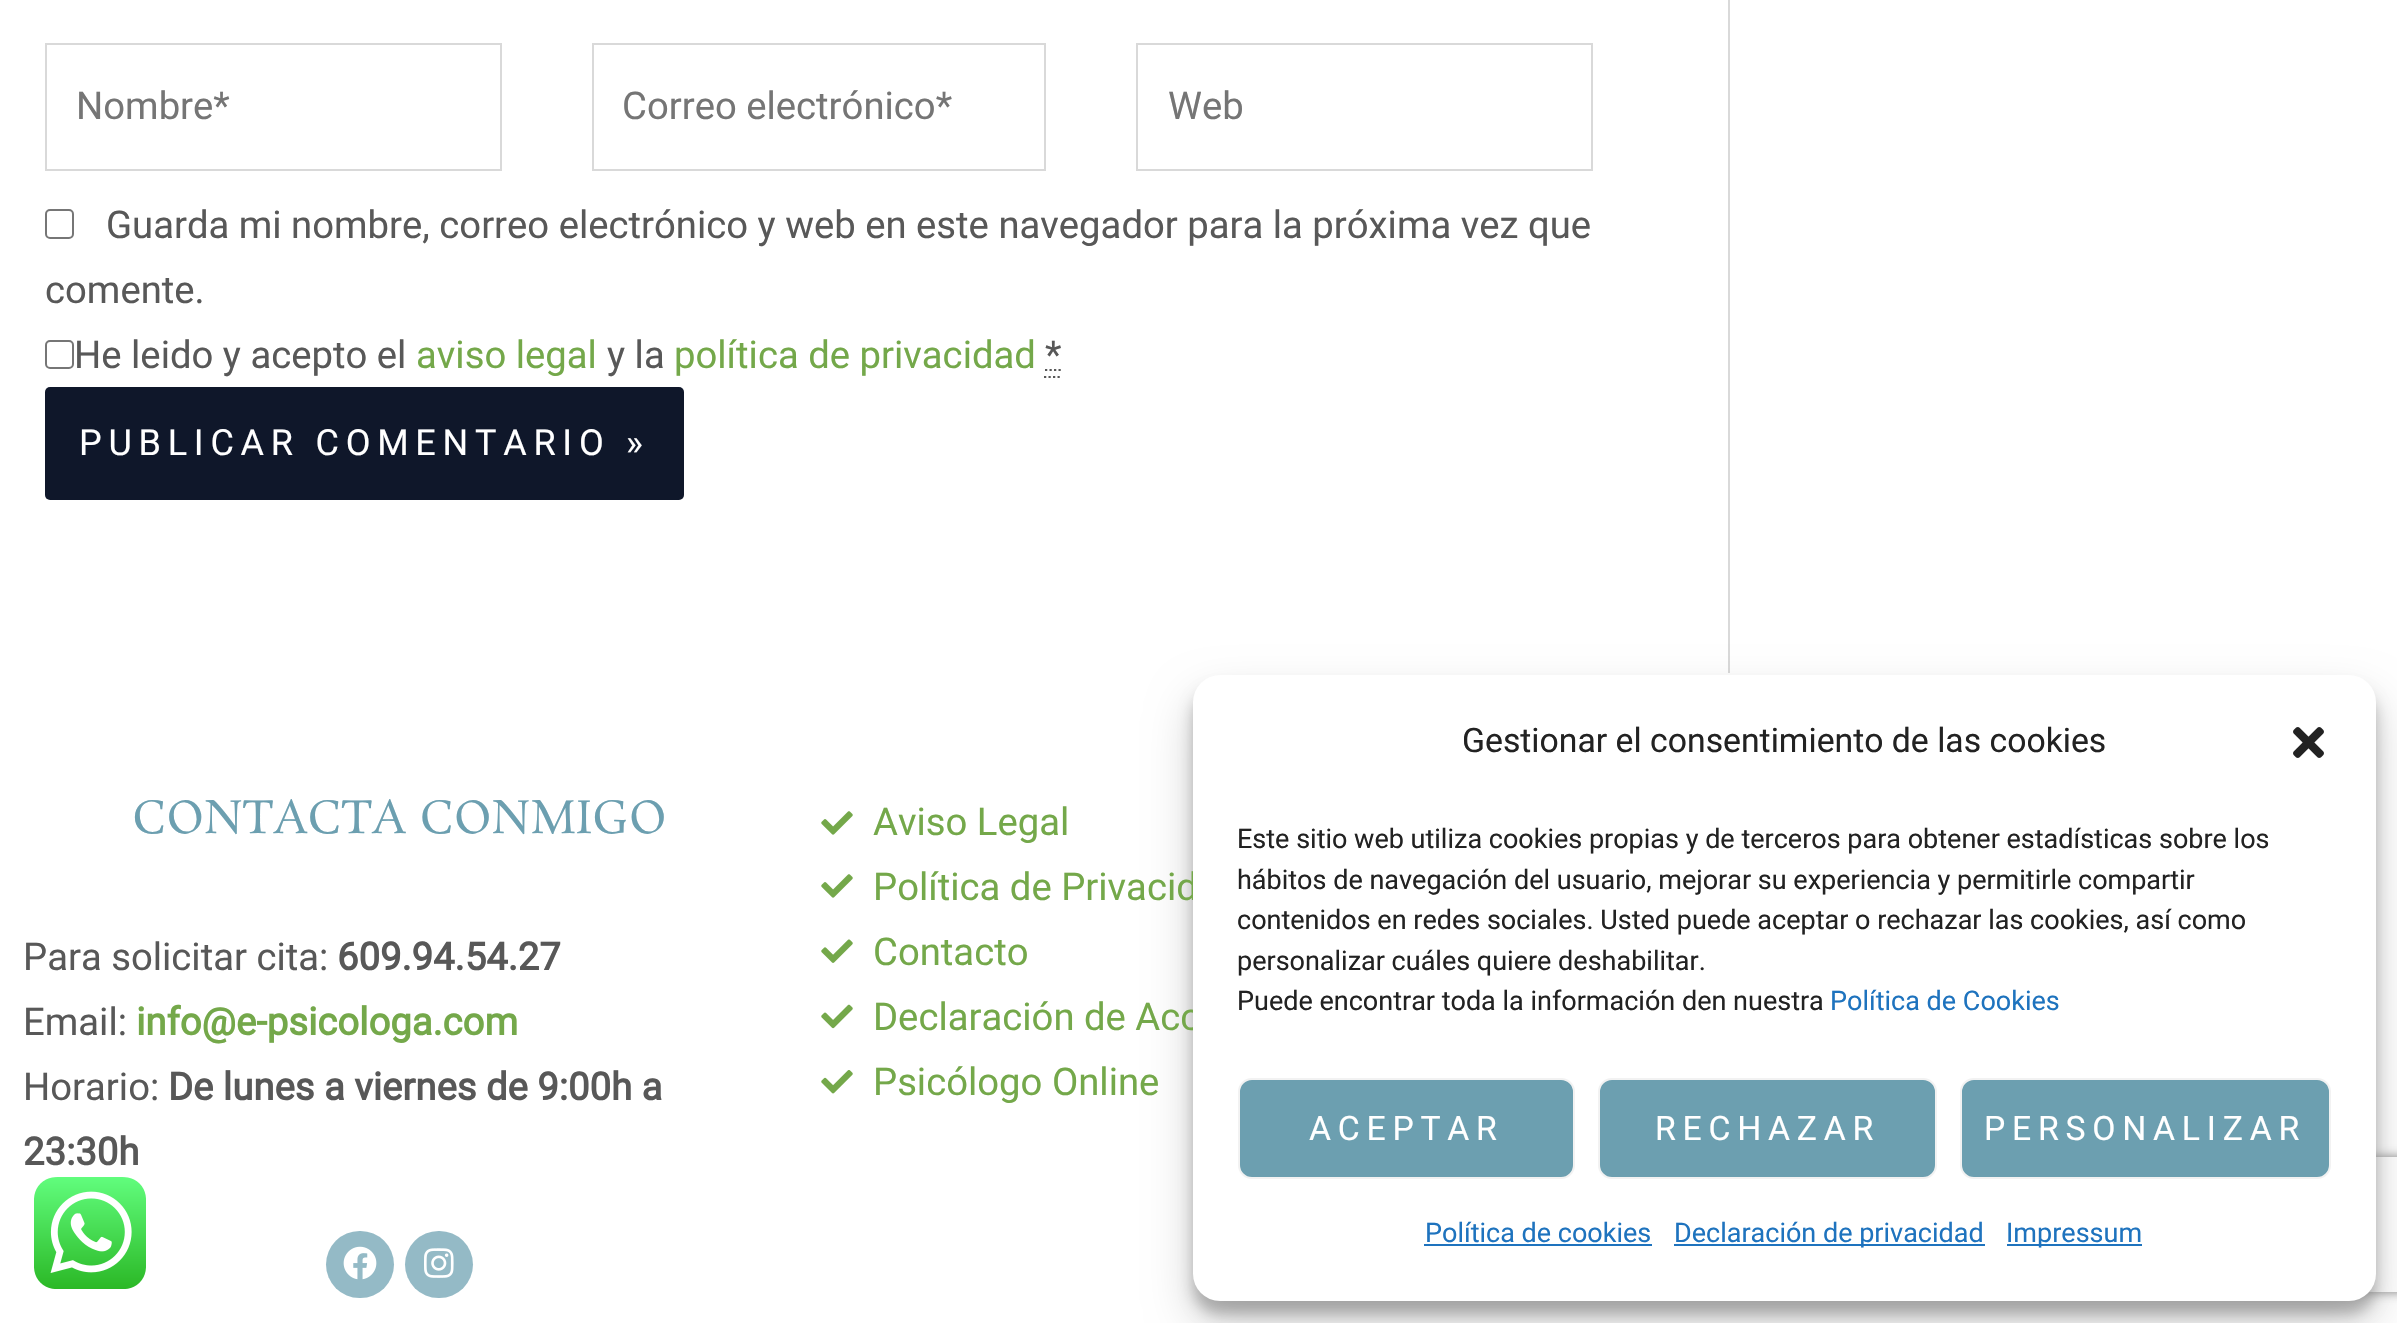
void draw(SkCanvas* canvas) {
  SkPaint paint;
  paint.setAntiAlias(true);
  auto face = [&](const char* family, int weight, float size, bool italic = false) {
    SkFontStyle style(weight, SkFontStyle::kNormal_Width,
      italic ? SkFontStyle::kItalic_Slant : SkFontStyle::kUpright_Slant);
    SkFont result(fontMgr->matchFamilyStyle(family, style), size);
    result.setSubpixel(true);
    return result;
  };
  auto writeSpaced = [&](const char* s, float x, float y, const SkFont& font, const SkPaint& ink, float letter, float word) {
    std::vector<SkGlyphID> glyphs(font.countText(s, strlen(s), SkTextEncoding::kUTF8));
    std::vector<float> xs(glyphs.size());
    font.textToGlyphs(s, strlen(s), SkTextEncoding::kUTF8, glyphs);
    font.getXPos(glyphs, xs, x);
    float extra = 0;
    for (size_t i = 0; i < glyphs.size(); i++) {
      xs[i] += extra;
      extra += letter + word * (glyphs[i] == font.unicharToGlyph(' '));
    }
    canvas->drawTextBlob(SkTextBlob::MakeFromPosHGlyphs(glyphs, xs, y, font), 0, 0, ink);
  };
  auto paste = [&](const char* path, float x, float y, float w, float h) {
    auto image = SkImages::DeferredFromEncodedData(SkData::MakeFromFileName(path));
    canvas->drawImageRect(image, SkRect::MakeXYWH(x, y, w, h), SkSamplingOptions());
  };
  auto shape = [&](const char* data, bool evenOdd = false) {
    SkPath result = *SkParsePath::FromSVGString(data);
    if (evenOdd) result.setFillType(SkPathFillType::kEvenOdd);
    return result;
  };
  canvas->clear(0xffffffff);
  paint.setStroke(true);
  paint.setStrokeWidth(2);
  paint.setColor(0xffd9d9d9);
  canvas->drawRect(SkRect::MakeXYWH(46, 44, 455, 126), paint);
  canvas->drawRect(SkRect::MakeXYWH(593, 44, 452, 126), paint);
  canvas->drawRect(SkRect::MakeXYWH(1137, 44, 455, 126), paint);
  paint.setColor(0xff767676);
  canvas->drawRoundRect(SkRect::MakeXYWH(46, 210, 27, 28), 4, 4, paint);
  canvas->drawRoundRect(SkRect::MakeXYWH(46, 341, 27, 27), 4, 4, paint);
  paint.setStrokeWidth(2.2f);
  paint.setColor(0xff585858);
  paint.setPathEffect(SkDashPathEffect::Make({{2.25f, 2.25f}}, 0));
  canvas->drawPath(shape("M1044 377H1062M1045 370H1061.5"), paint);
  paint.setPathEffect(nullptr);
  paint.setStroke(false);
  paint.setColor(0xff0f172a);
  canvas->drawRoundRect(SkRect::MakeXYWH(45, 387, 639, 113), 5, 5, paint);
  paint.setColor(0xffd9d9d9);
  canvas->drawRect(SkRect::MakeXYWH(1728, 0, 2, 673), paint);
  paint.setColor(0xff94bac6);
  canvas->drawRoundRect(SkRect::MakeXYWH(326, 1231, 68, 67), 33.5f, 33.5f, paint);
  paste("img/1.png", 343, 1246, 34, 34);
  canvas->drawRoundRect(SkRect::MakeXYWH(405, 1231, 68, 67), 33.5f, 33.5f, paint);
  paste("img/2.png", 424, 1248, 30, 30);
  paste("img/3.png", 821, 811, 32, 24);
  paste("img/3.png", 821, 874, 32, 24);
  paste("img/4.png", 821, 939, 32, 24);
  paste("img/5.png", 821, 1004, 32, 25);
  paste("img/6.png", 821, 1070, 32, 24);
  paint.setColor(0x3b000000);
  paint.setMaskFilter(SkMaskFilter::MakeBlur(kNormal_SkBlurStyle, 7));
  canvas->drawRoundRect(SkRect::MakeXYWH(1193, 689, 1183, 625), 27, 27, paint);
  paint.setMaskFilter(nullptr);
  paint.setColor(0x30000000);
  paint.setMaskFilter(SkMaskFilter::MakeBlur(kNormal_SkBlurStyle, 22.5f));
  canvas->drawRoundRect(SkRect::MakeXYWH(1193, 698, 1183, 625), 27, 27, paint);
  paint.setMaskFilter(nullptr);
  canvas->save();
  canvas->clipPath(shape("M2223 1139H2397V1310H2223ZM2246 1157H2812C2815 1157 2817 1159 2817 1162V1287C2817 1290 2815 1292 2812 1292H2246C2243 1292 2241 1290 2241 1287V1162C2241 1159 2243 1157 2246 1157Z", true), true);
  paint.setColor(0xff808080);
  paint.setMaskFilter(SkMaskFilter::MakeBlur(kNormal_SkBlurStyle, 5.5f));
  canvas->drawRoundRect(SkRect::MakeXYWH(2241, 1157, 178, 135), 5, 5, paint);
  paint.setMaskFilter(nullptr);
  canvas->restore();
  paste("img/8.png", 34, 1177, 112, 112);
  auto f0 = face("Roboto", 400, 38.25f);
  paint.setColor(0xff757575);
  {
    const struct { const char* s; float x, y; } items[] = {
      {"Nombre*", 76, 119},
      {"Correo electrónico*", 622, 119},
      {"Web", 1168, 119},
    };
    for (auto [s, x, y] : items) {
      canvas->drawString(s, x, y, f0, paint);
    }
  }
  paint.setColor(0xff585858);
  {
    const struct { const char* s; float x, y; } items[] = {
      {"Guarda mi nombre, correo electrónico y web en este navegador para la próxima vez que", 106, 238},
      {"comente.", 45, 303},
      {"He leido y acepto el", 74, 368},
    };
    for (auto [s, x, y] : items) {
      canvas->drawString(s, x, y, f0, paint);
    }
  }
  paint.setColor(0xff74a84a);
  canvas->drawString("aviso legal", 416, 368, f0, paint);
  paint.setColor(0xff585858);
  canvas->drawString("y la", 607, 368, f0, paint);
  paint.setColor(0xff74a84a);
  canvas->drawString("política de privacidad", 674, 368, f0, paint);
  paint.setColor(0xff585858);
  canvas->drawString("*", 1045, 368, f0, paint);
  auto f1 = face("Roboto", 400, 36);
  paint.setColor(0xffffffff);
  writeSpaced("PUBLICAR COMENTARIO »", 79, 455, f1, paint, 6.75f, 0);
  auto f2 = face("Rosarivo", 400, 45);
  paint.setColor(0xff6c9fb0);
  canvas->drawString("CONTACTA CONMIGO", 132, 833, f2, paint);
  paint.setColor(0xff585858);
  canvas->drawString("Para solicitar cita:", 23, 970, f0, paint);
  auto f3 = face("Roboto", 700, 38.25f);
  canvas->drawString("609.94.54.27", 337, 970, f3, paint);
  canvas->drawString("Email:", 23, 1035, f0, paint);
  paint.setColor(0xff74a84a);
  canvas->drawString("info@e-psicologa.com", 136, 1035, f3, paint);
  paint.setColor(0xff585858);
  canvas->drawString("Horario:", 23, 1100, f0, paint);
  canvas->drawString("De lunes a viernes de 9:00h a", 168, 1100, f3, paint);
  canvas->drawString("23:30h", 23, 1165, f3, paint);
  paint.setColor(0xff74a84a);
  {
    const struct { const char* s; float x, y; } items[] = {
      {"Aviso Legal", 873, 835},
      {"Política de Privacid", 873, 900},
      {"Contacto", 873, 965},
      {"Declaración de Acc", 873, 1030},
      {"Psicólogo Online", 873, 1095},
    };
    for (auto [s, x, y] : items) {
      canvas->drawString(s, x, y, f0, paint);
    }
  }
  paint.setColor(0xffffffff);
  canvas->drawRoundRect(SkRect::MakeXYWH(1193, 675, 1183, 626), 27, 27, paint);
  auto f4 = face("Roboto", 400, 33.75f);
  paint.setColor(0xff222222);
  canvas->drawString("Gestionar el consentimiento de las cookies", 1462, 752, f4, paint);
  paste("img/7.png", 2293, 727, 31, 31);
  auto f5 = face("Roboto", 400, 27);
  {
    const struct { const char* s; float x, y; } items[] = {
      {"Este sitio web utiliza cookies propias y de terceros para obtener estadísticas sobre los", 1237, 848},
      {"hábitos de navegación del usuario, mejorar su experiencia y permitirle compartir", 1237, 889},
      {"contenidos en redes sociales. Usted puede aceptar o rechazar las cookies, así como", 1237, 929},
      {"personalizar cuáles quiere deshabilitar.", 1237, 970},
      {"Puede encontrar toda la información den nuestra", 1237, 1010},
    };
    for (auto [s, x, y] : items) {
      canvas->drawString(s, x, y, f5, paint);
    }
  }
  paint.setColor(0xff1e73be);
  canvas->drawString("Política de Cookies", 1830, 1010, f5, paint);
  paint.setColor(0xff6c9fb0);
  canvas->drawRoundRect(SkRect::MakeXYWH(1239, 1079, 335, 99), 13, 13, paint);
  paint.setStroke(true);
  paint.setStrokeWidth(2);
  paint.setColor(0xfff2f2f2);
  canvas->drawRoundRect(SkRect::MakeXYWH(1239, 1079, 335, 99), 13, 13, paint);
  paint.setStroke(false);
  paint.setColor(0xffffffff);
  writeSpaced("ACEPTAR", 1309, 1140, f4, paint, 6.75f, 0);
  paint.setColor(0xff6c9fb0);
  canvas->drawRoundRect(SkRect::MakeXYWH(1599, 1079, 337, 99), 13, 13, paint);
  paint.setStroke(true);
  paint.setColor(0xfff2f2f2);
  canvas->drawRoundRect(SkRect::MakeXYWH(1599, 1079, 337, 99), 13, 13, paint);
  paint.setStroke(false);
  paint.setColor(0xffffffff);
  writeSpaced("RECHAZAR", 1655, 1140, f4, paint, 6.75f, 0);
  paint.setColor(0xff6c9fb0);
  canvas->drawRoundRect(SkRect::MakeXYWH(1961, 1079, 369, 99), 13, 13, paint);
  paint.setStroke(true);
  paint.setColor(0xfff2f2f2);
  canvas->drawRoundRect(SkRect::MakeXYWH(1961, 1079, 369, 99), 13, 13, paint);
  paint.setStroke(false);
  paint.setColor(0xffffffff);
  writeSpaced("PERSONALIZAR", 1984, 1140, f4, paint, 6.75f, 0);
  paint.setColor(0xff1e73be);
  canvas->drawString("Política de cookies", 1425, 1242, f5, paint);
  canvas->drawRect(SkRect::MakeXYWH(1424, 1244, 228, 2), paint);
  canvas->drawRect(SkRect::MakeXYWH(1674, 1244, 311, 2), paint);
  canvas->drawString("Declaración de privacidad", 1674, 1242, f5, paint);
  canvas->drawRect(SkRect::MakeXYWH(2007, 1244, 135, 2), paint);
  canvas->drawString("Impressum", 2006, 1242, f5, paint);
}
